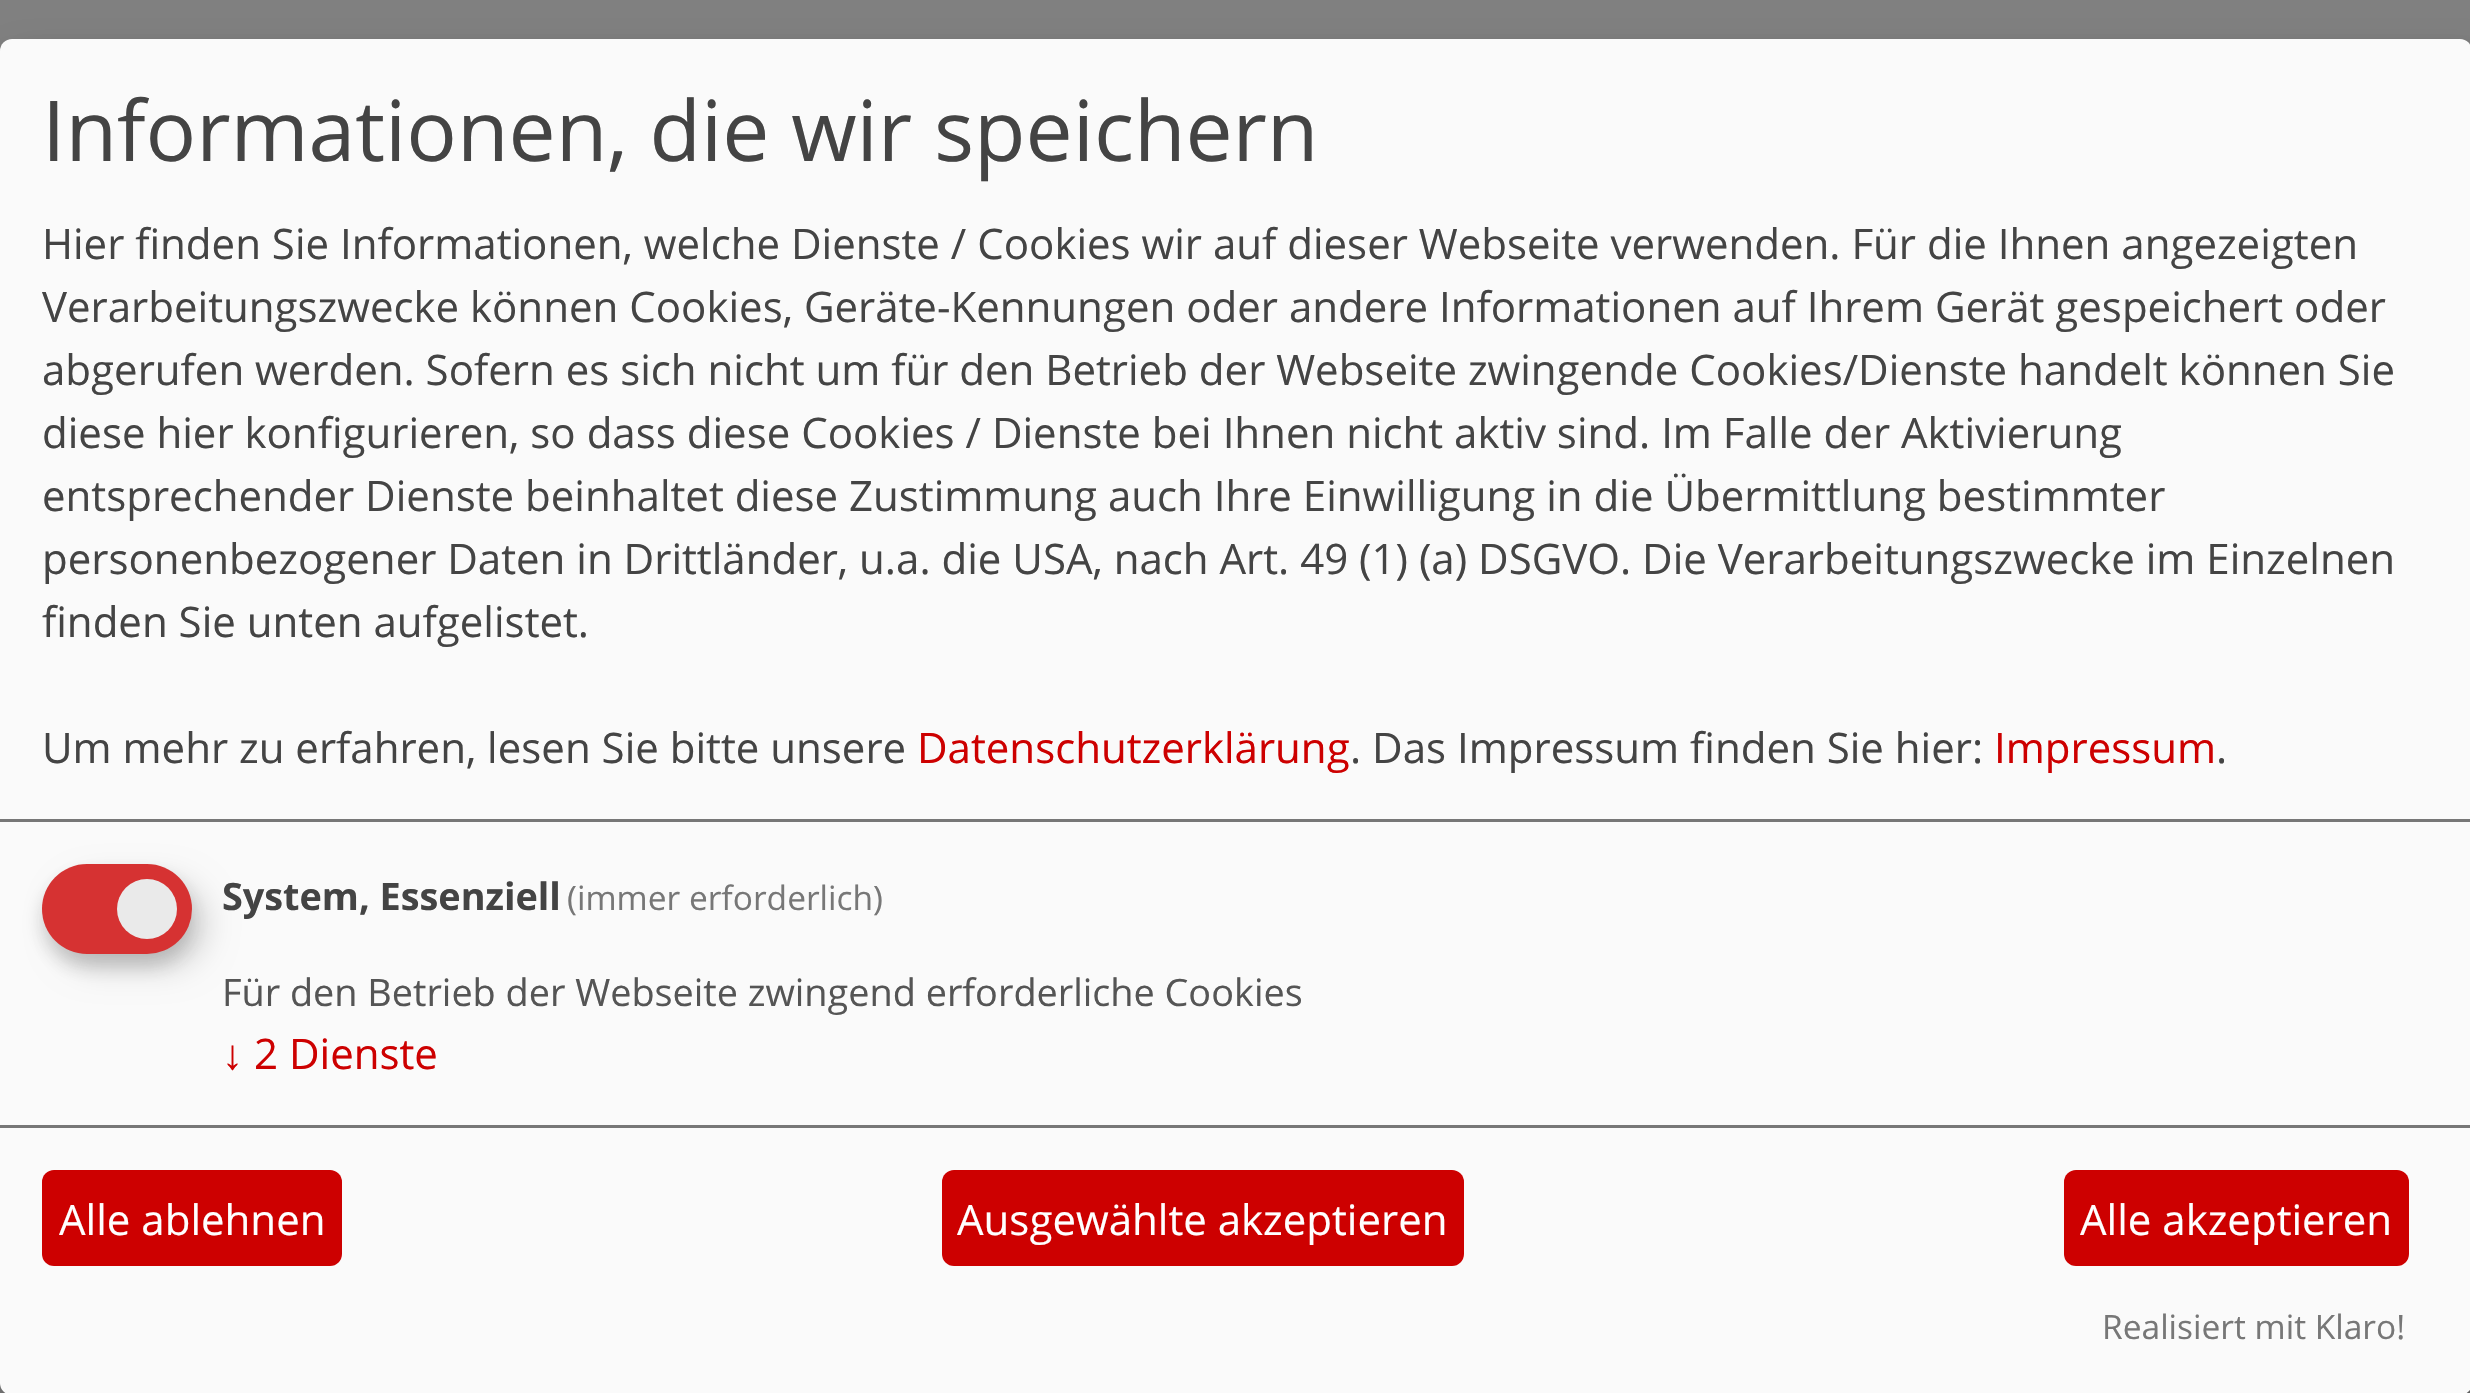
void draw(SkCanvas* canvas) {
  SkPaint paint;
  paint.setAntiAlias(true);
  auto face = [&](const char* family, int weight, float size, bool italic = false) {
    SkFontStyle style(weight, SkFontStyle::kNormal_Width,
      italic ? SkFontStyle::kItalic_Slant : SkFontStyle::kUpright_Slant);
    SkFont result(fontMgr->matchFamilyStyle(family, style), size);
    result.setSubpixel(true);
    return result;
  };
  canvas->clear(0xff808080);
  paint.setColor(0x30000000);
  paint.setMaskFilter(SkMaskFilter::MakeBlur(kNormal_SkBlurStyle, 15));
  canvas->drawRoundRect(SkRect::MakeXYWH(15, 54, 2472, 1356), 12, 12, paint);
  paint.setMaskFilter(nullptr);
  paint.setColor(0x33000000);
  paint.setMaskFilter(SkMaskFilter::MakeBlur(kNormal_SkBlurStyle, 9));
  canvas->drawRoundRect(SkRect::MakeXYWH(0, 51, 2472, 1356), 12, 12, paint);
  paint.setMaskFilter(nullptr);
  paint.setColor(0xfffafafa);
  canvas->drawRoundRect(SkRect::MakeXYWH(0, 39, 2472, 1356), 12, 12, paint);
  paint.setColor(0xff777777);
  canvas->drawRect(SkRect::MakeXYWH(0, 819, 2470, 3), paint);
  paint.setColor(0x26000000);
  paint.setMaskFilter(SkMaskFilter::MakeBlur(kNormal_SkBlurStyle, 15));
  canvas->drawRoundRect(SkRect::MakeXYWH(57, 879, 150, 90), 45, 45, paint);
  paint.setMaskFilter(nullptr);
  paint.setColor(0x33323232);
  paint.setMaskFilter(SkMaskFilter::MakeBlur(kNormal_SkBlurStyle, 9));
  canvas->drawRoundRect(SkRect::MakeXYWH(42, 876, 150, 90), 45, 45, paint);
  paint.setMaskFilter(nullptr);
  paint.setColor(0xffd63232);
  canvas->drawRoundRect(SkRect::MakeXYWH(42, 864, 150, 90), 45, 45, paint);
  paint.setColor(0xffeaeaea);
  canvas->drawCircle(147, 909, 30, paint);
  paint.setColor(0xff777777);
  canvas->drawRect(SkRect::MakeXYWH(0, 1125, 2470, 3), paint);
  paint.setColor(0xffcd0000);
  canvas->drawRoundRect(SkRect::MakeXYWH(42, 1170, 300, 96), 12, 12, paint);
  canvas->drawRoundRect(SkRect::MakeXYWH(942, 1170, 522, 96), 12, 12, paint);
  canvas->drawRoundRect(SkRect::MakeXYWH(2064, 1170, 345, 96), 12, 12, paint);
  auto f0 = face("Open Sans", 400, 84);
  paint.setColor(0xff444444);
  canvas->drawString("Informationen, die wir speichern", 42, 161, f0, paint);
  auto f1 = face("Open Sans", 400, 42);
  {
    const struct { const char* s; float x, y; } items[] = {
      {"Hier finden Sie Informationen, welche Dienste / Cookies wir auf dieser Webseite verwenden. Für die Ihnen angezeigten", 42, 259},
      {"Verarbeitungszwecke können Cookies, Geräte-Kennungen oder andere Informationen auf Ihrem Gerät gespeichert oder", 42, 322},
      {"abgerufen werden. Sofern es sich nicht um für den Betrieb der Webseite zwingende Cookies/Dienste handelt können Sie", 42, 385},
      {"diese hier konfigurieren, so dass diese Cookies / Dienste bei Ihnen nicht aktiv sind. Im Falle der Aktivierung", 42, 448},
      {"entsprechender Dienste beinhaltet diese Zustimmung auch Ihre Einwilligung in die Übermittlung bestimmter", 42, 511},
      {"personenbezogener Daten in Drittländer, u.a. die USA, nach Art. 49 (1) (a) DSGVO. Die Verarbeitungszwecke im Einzelnen", 42, 574},
      {"finden Sie unten aufgelistet.", 42, 637},
      {"Um mehr zu erfahren, lesen Sie bitte unsere", 42, 763},
    };
    for (auto [s, x, y] : items) {
      canvas->drawString(s, x, y, f1, paint);
    }
  }
  paint.setColor(0xffcd0000);
  canvas->drawString("Datenschutzerklärung", 917, 763, f1, paint);
  paint.setColor(0xff444444);
  canvas->drawString(". Das Impressum finden Sie hier:", 1350, 763, f1, paint);
  paint.setColor(0xffcd0000);
  canvas->drawString("Impressum", 1994, 763, f1, paint);
  paint.setColor(0xff444444);
  canvas->drawString(".", 2216, 763, f1, paint);
  auto f2 = face("Open Sans", 700, 37.8f);
  canvas->drawString("System, Essenziell", 222, 910, f2, paint);
  auto f3 = face("Open Sans", 400, 33.5f);
  paint.setColor(0xff777777);
  canvas->drawString("(immer erforderlich)", 567, 910, f3, paint);
  auto f4 = face("Open Sans", 400, 37.8f);
  paint.setColor(0xff555555);
  canvas->drawString("Für den Betrieb der Webseite zwingend erforderliche Cookies", 222, 1006, f4, paint);
  auto f5 = face("Liberation Sans", 400, 42);
  paint.setColor(0xffcd0000);
  canvas->drawString("↓", 222, 1069, f5, paint);
  canvas->drawString("2 Dienste", 254, 1069, f1, paint);
  paint.setColor(0xffffffff);
  {
    const struct { const char* s; float x, y; } items[] = {
      {"Alle ablehnen", 59, 1235},
      {"Ausgewählte akzeptieren", 957, 1235},
      {"Alle akzeptieren", 2080, 1235},
    };
    for (auto [s, x, y] : items) {
      canvas->drawString(s, x, y, f1, paint);
    }
  }
  paint.setColor(0xff777777);
  canvas->drawString("Realisiert mit Klaro!", 2102, 1339, f3, paint);
}
